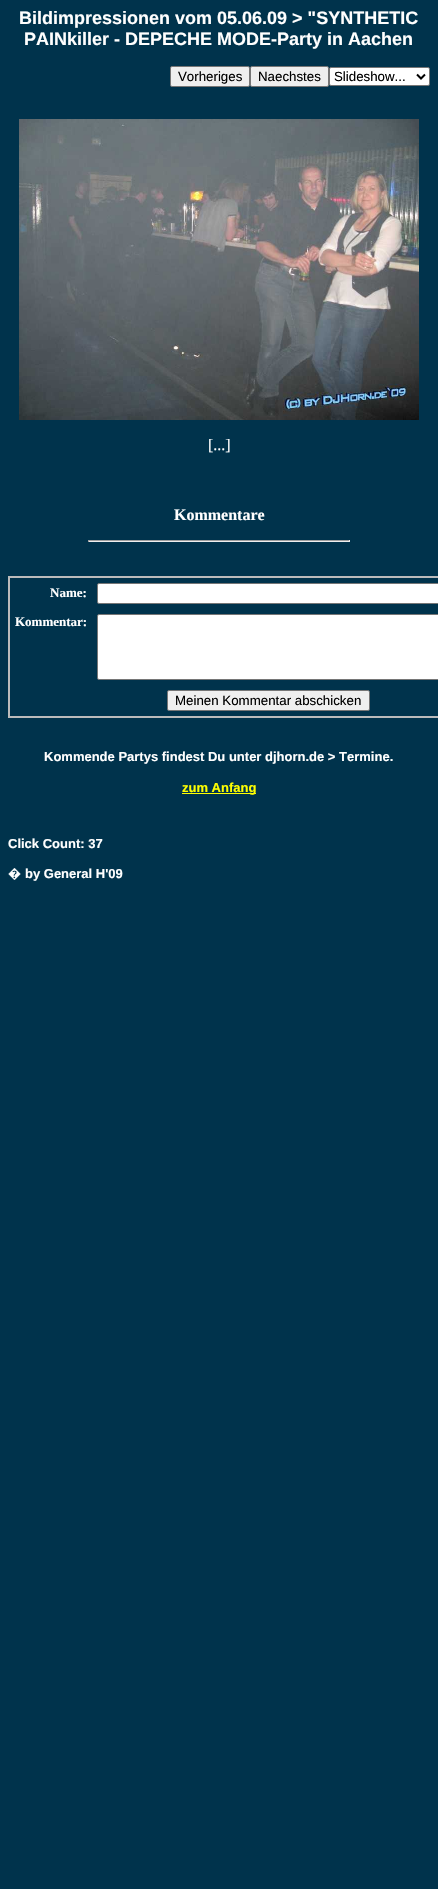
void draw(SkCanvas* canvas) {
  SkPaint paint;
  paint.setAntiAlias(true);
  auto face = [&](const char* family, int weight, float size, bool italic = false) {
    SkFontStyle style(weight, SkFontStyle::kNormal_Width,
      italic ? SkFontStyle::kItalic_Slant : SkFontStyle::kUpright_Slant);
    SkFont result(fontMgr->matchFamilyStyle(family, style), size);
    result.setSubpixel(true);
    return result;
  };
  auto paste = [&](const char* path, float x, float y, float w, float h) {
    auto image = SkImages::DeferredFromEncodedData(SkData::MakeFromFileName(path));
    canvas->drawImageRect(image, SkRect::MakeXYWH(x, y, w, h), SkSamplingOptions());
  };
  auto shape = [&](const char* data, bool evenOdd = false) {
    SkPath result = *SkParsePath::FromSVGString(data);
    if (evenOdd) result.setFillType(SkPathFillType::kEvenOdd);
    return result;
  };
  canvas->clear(0xff00334c);
  paint.setColor(0xffefefef);
  canvas->drawRoundRect(SkRect::MakeXYWH(170.5f, 66.5f, 79, 20), 1.5f, 1.5f, paint);
  paint.setStroke(true);
  paint.setStrokeWidth(1);
  paint.setColor(0xff767676);
  canvas->drawRoundRect(SkRect::MakeXYWH(170.5f, 66.5f, 79, 20), 1.5f, 1.5f, paint);
  paint.setStroke(false);
  paint.setColor(0xffefefef);
  canvas->drawRoundRect(SkRect::MakeXYWH(250.5f, 66.5f, 78, 20), 1.5f, 1.5f, paint);
  paint.setStroke(true);
  paint.setColor(0xff767676);
  canvas->drawRoundRect(SkRect::MakeXYWH(250.5f, 66.5f, 78, 20), 1.5f, 1.5f, paint);
  paint.setStroke(false);
  paint.setColor(0xffffffff);
  canvas->drawRoundRect(SkRect::MakeXYWH(329.5f, 67.5f, 100, 18), 1.5f, 1.5f, paint);
  paint.setStroke(true);
  paint.setColor(0xff767676);
  canvas->drawRoundRect(SkRect::MakeXYWH(329.5f, 67.5f, 100, 18), 1.5f, 1.5f, paint);
  paint.setStrokeWidth(2);
  paint.setColor(0xff000000);
  canvas->drawPath(shape("M417 74.5L421 78.5L425 74.5"), paint);
  paste("img/1.png", 19, 119, 400, 301);
  paint.setStroke(false);
  {
    const struct { float x, y, w, h; SkColor color; } items[] = {
      {88, 540, 262, 1, 0xff9f9f9f},
      {349, 540, 1, 2, 0xffeeeeee},
      {88, 541, 262, 1, 0xffeeeeee},
      {88, 540, 1, 2, 0xff9f9f9f},
      {8, 576, 430, 142, 0xffbbbbbb},
      {10, 578, 428, 138, 0xff00334c},
    };
    for (auto [x, y, w, h, color] : items) {
      paint.setColor(color);
      canvas->drawRect(SkRect::MakeXYWH(x, y, w, h), paint);
    }
  }
  paint.setColor(0xffffffff);
  canvas->drawRoundRect(SkRect::MakeXYWH(97.5f, 583.5f, 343, 20), 1.5f, 1.5f, paint);
  paint.setStroke(true);
  paint.setStrokeWidth(1);
  paint.setColor(0xff767676);
  canvas->drawRoundRect(SkRect::MakeXYWH(97.5f, 583.5f, 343, 20), 1.5f, 1.5f, paint);
  paint.setStroke(false);
  paint.setColor(0xffffffff);
  canvas->drawRoundRect(SkRect::MakeXYWH(97.5f, 614.5f, 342, 65), 1.5f, 1.5f, paint);
  paint.setStroke(true);
  paint.setColor(0xff767676);
  canvas->drawRoundRect(SkRect::MakeXYWH(97.5f, 614.5f, 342, 65), 1.5f, 1.5f, paint);
  paint.setStroke(false);
  paint.setColor(0xffefefef);
  canvas->drawRoundRect(SkRect::MakeXYWH(167.5f, 690.5f, 202, 20), 1.5f, 1.5f, paint);
  paint.setStroke(true);
  paint.setColor(0xff767676);
  canvas->drawRoundRect(SkRect::MakeXYWH(167.5f, 690.5f, 202, 20), 1.5f, 1.5f, paint);
  paint.setStroke(false);
  paint.setColor(0xffffff00);
  canvas->drawRect(SkRect::MakeXYWH(182, 793, 74, 1), paint);
  auto f0 = face("Liberation Sans", 700, 18);
  paint.setColor(0xffffffff);
  canvas->drawString("Bildimpressionen vom 05.06.09 > \"SYNTHETIC", 19, 24, f0, paint);
  canvas->drawString("PAINkiller - DEPECHE MODE-Party in Aachen", 24, 45, f0, paint);
  auto f1 = face("Liberation Sans", 400, 13.3f);
  paint.setColor(0xff000000);
  {
    const struct { const char* s; float x, y; } items[] = {
      {"Vorheriges", 178, 81},
      {"Naechstes", 258, 81},
      {"Slideshow...", 334, 81},
    };
    for (auto [s, x, y] : items) {
      canvas->drawString(s, x, y, f1, paint);
    }
  }
  auto f2 = face("Liberation Serif", 400, 16);
  paint.setColor(0xffffffff);
  canvas->drawString("[...]", 208, 450, f2, paint);
  auto f3 = face("Liberation Serif", 700, 16);
  canvas->drawString("Kommentare", 174, 520, f3, paint);
  auto f4 = face("Liberation Serif", 700, 13);
  canvas->drawString("Name:", 50, 597, f4, paint);
  canvas->drawString("Kommentar:", 15, 626, f4, paint);
  paint.setColor(0xff000000);
  canvas->drawString("Meinen Kommentar abschicken", 175, 705, f1, paint);
  auto f5 = face("Liberation Sans", 700, 13);
  paint.setColor(0xffffffff);
  canvas->drawString("Kommende Partys findest Du unter djhorn.de > Termine.", 44, 761, f5, paint);
  paint.setColor(0xffffff00);
  canvas->drawString("zum Anfang", 182, 792, f5, paint);
  paint.setColor(0xffffffff);
  canvas->drawString("Click Count: 37", 8, 848, f5, paint);
  auto f6 = face("Noto Sans", 900, 13);
  canvas->drawString("�", 8, 878, f6, paint);
  canvas->drawString("by General H'09", 25, 878, f5, paint);
}
